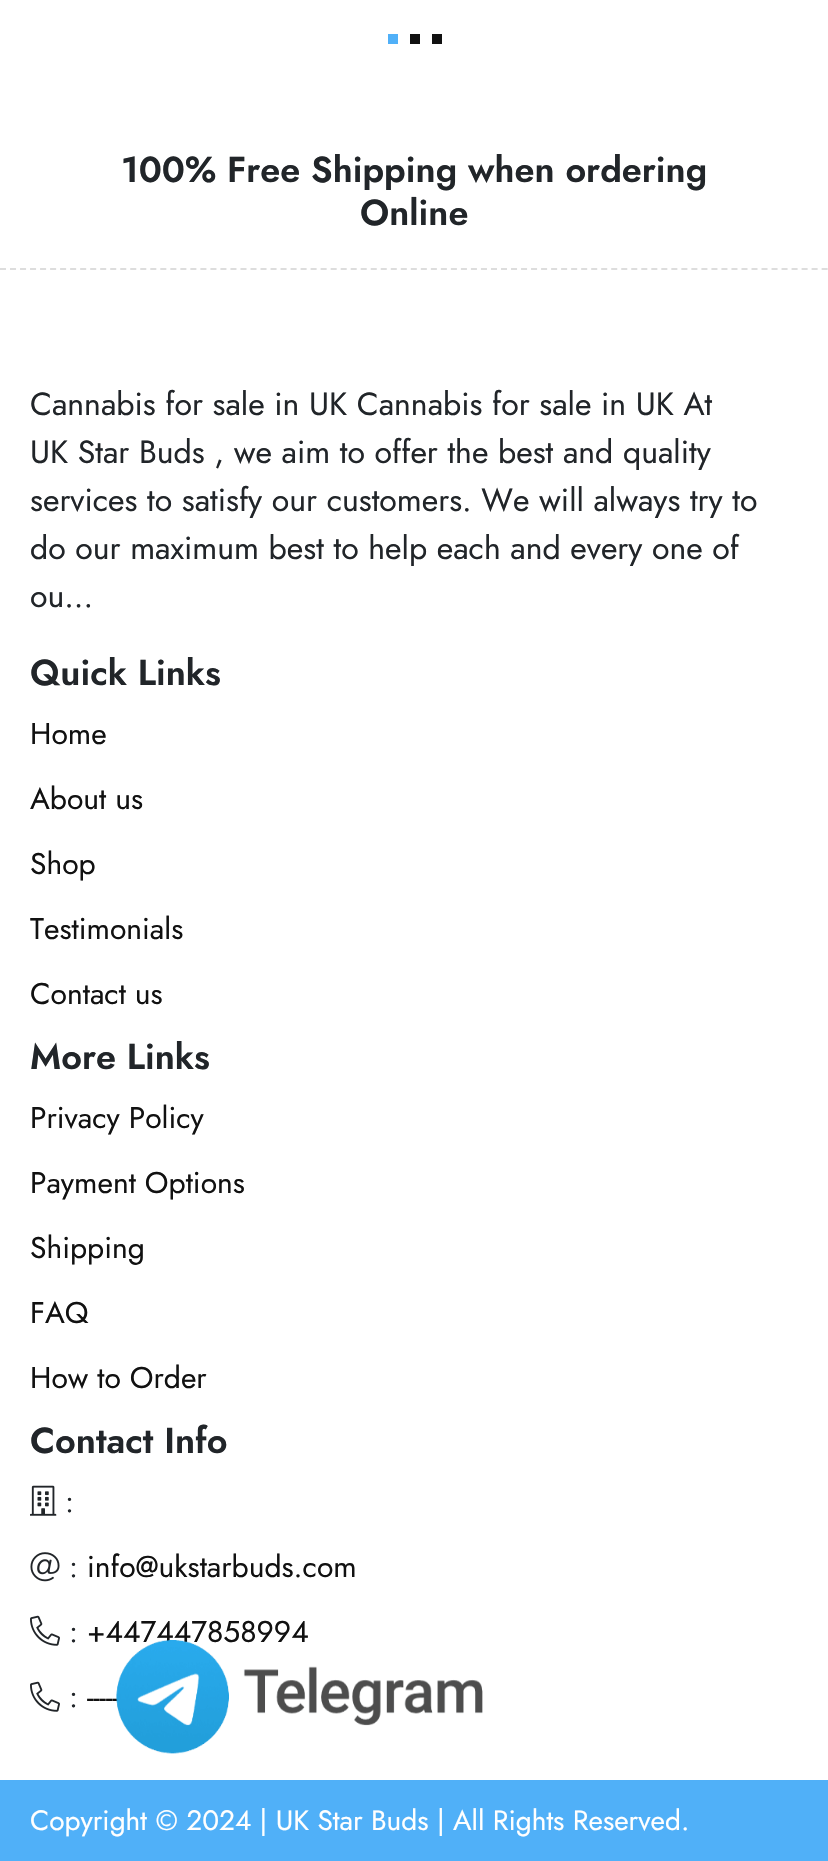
void draw(SkCanvas* canvas) {
  SkPaint paint;
  paint.setAntiAlias(true);
  auto face = [&](const char* family, int weight, float size, bool italic = false) {
    SkFontStyle style(weight, SkFontStyle::kNormal_Width,
      italic ? SkFontStyle::kItalic_Slant : SkFontStyle::kUpright_Slant);
    SkFont result(fontMgr->matchFamilyStyle(family, style), size);
    result.setSubpixel(true);
    return result;
  };
  auto paste = [&](const char* path, float x, float y, float w, float h) {
    auto image = SkImages::DeferredFromEncodedData(SkData::MakeFromFileName(path));
    canvas->drawImageRect(image, SkRect::MakeXYWH(x, y, w, h), SkSamplingOptions());
  };
  auto shape = [&](const char* data, bool evenOdd = false) {
    SkPath result = *SkParsePath::FromSVGString(data);
    if (evenOdd) result.setFillType(SkPathFillType::kEvenOdd);
    return result;
  };
  canvas->clear(0xffffffff);
  {
    const struct { float x, y, w, h; SkColor color; } items[] = {
      {388, 34, 10, 10, 0xff50b0f8},
      {410, 34, 10, 10, 0xff111111},
      {432, 34, 10, 10, 0xff111111},
    };
    for (auto [x, y, w, h, color] : items) {
      paint.setColor(color);
      canvas->drawRect(SkRect::MakeXYWH(x, y, w, h), paint);
    }
  }
  paint.setStroke(true);
  paint.setStrokeWidth(2);
  paint.setColor(0xffdddddd);
  paint.setPathEffect(SkDashPathEffect::Make({{6, 4.02f}}, 0));
  canvas->drawPath(shape("M0 269H828"), paint);
  paint.setPathEffect(nullptr);
  paste("img/1.png", 30, 1485, 27, 31);
  paste("img/2.png", 30, 1552, 30, 30);
  paste("img/3.png", 30, 1615, 30, 31);
  paste("img/3.png", 30, 1681, 30, 31);
  paint.setStroke(false);
  paint.setColor(0xff50b0f8);
  canvas->drawRect(SkRect::MakeXYWH(0, 1780, 828, 81), paint);
  auto f0 = face("Jost", 600, 36);
  paint.setColor(0xff212529);
  canvas->drawString("100% Free Shipping when ordering", 121, 182, f0, paint);
  canvas->drawString("Online", 360, 225, f0, paint);
  auto f1 = face("Jost", 400, 32);
  {
    const struct { const char* s; float x, y; } items[] = {
      {"Cannabis for sale in UK Cannabis for sale in UK At", 30, 415},
      {"UK Star Buds , we aim to offer the best and quality", 30, 463},
      {"services to satisfy our customers. We will always try to", 30, 511},
      {"do our maximum best to help each and every one of", 30, 559},
      {"ou...", 30, 607},
    };
    for (auto [s, x, y] : items) {
      canvas->drawString(s, x, y, f1, paint);
    }
  }
  canvas->drawString("Quick Links", 30, 685, f0, paint);
  auto f2 = face("Jost", 400, 30);
  paint.setColor(0xff111111);
  {
    const struct { const char* s; float x, y; } items[] = {
      {"Home", 30, 744},
      {"About us", 30, 809},
      {"Shop", 30, 874},
      {"Testimonials", 30, 939},
      {"Contact us", 30, 1004},
    };
    for (auto [s, x, y] : items) {
      canvas->drawString(s, x, y, f2, paint);
    }
  }
  paint.setColor(0xff212529);
  canvas->drawString("More Links", 30, 1069, f0, paint);
  paint.setColor(0xff111111);
  {
    const struct { const char* s; float x, y; } items[] = {
      {"Privacy Policy", 30, 1128},
      {"Payment Options", 30, 1193},
      {"Shipping", 30, 1258},
      {"FAQ", 30, 1323},
      {"How to Order", 30, 1388},
    };
    for (auto [s, x, y] : items) {
      canvas->drawString(s, x, y, f2, paint);
    }
  }
  paint.setColor(0xff212529);
  canvas->drawString("Contact Info", 30, 1453, f0, paint);
  canvas->drawString(":", 65, 1512, f2, paint);
  canvas->drawString(":", 69, 1577, f2, paint);
  paint.setColor(0xff111111);
  canvas->drawString("info@ukstarbuds.com", 87, 1577, f2, paint);
  paint.setColor(0xff212529);
  canvas->drawString(":", 69, 1642, f2, paint);
  paint.setColor(0xff111111);
  canvas->drawString("+447447858994", 87, 1642, f2, paint);
  paint.setColor(0xff212529);
  canvas->drawString(":", 69, 1707, f2, paint);
  paint.setColor(0xff111111);
  canvas->drawString("-----", 87, 1707, f2, paint);
  paste("img/4.png", 116, 1640, 367, 114);
  auto f3 = face("Jost", 400, 28);
  paint.setColor(0xffffffff);
  canvas->drawString("Copyright © 2024 | UK Star Buds | All Rights Reserved.", 30, 1830, f3, paint);
}
